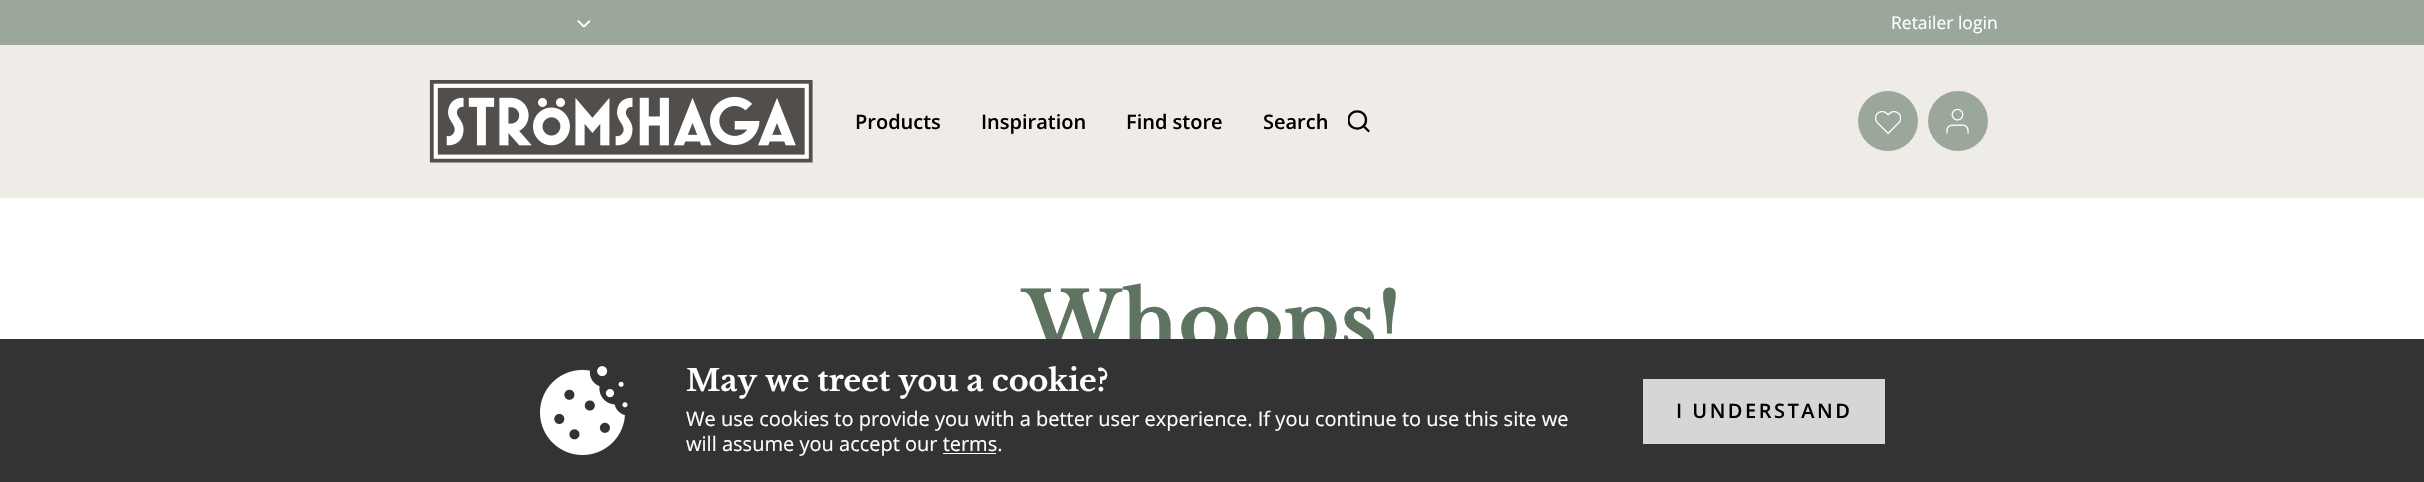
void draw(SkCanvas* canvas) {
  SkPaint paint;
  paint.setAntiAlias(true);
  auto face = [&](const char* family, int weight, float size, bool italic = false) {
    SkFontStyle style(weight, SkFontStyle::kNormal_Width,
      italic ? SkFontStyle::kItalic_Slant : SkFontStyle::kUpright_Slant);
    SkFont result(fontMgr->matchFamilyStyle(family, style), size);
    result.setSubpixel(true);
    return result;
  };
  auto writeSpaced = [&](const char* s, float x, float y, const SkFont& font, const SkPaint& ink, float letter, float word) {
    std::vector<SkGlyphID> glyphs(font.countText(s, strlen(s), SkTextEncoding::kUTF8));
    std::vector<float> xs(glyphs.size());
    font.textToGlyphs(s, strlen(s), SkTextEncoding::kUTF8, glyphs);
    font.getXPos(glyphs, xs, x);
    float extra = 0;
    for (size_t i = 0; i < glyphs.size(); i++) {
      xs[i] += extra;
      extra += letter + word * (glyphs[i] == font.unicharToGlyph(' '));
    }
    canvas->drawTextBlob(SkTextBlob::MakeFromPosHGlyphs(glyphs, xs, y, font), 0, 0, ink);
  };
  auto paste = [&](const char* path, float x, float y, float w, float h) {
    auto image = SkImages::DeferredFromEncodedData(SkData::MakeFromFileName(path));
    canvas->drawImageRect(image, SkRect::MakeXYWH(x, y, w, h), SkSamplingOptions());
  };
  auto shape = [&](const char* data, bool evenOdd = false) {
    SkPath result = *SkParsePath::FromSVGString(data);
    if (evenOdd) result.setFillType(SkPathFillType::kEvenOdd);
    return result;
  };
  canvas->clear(0xffffffff);
  paint.setColor(0xff9ca79c);
  canvas->drawRect(SkRect::MakeXYWH(0, 0, 2424, 45), paint);
  paste("img/1.png", 577, 20, 14, 8);
  paint.setColor(0xffefebe6);
  canvas->drawRect(SkRect::MakeXYWH(0, 45, 2424, 153), paint);
  paste("img/2.png", 429, 80, 384, 83);
  canvas->save();
  canvas->clipRect(SkRect::MakeXYWH(1348, 110, 22, 23));
  paint.setStroke(true);
  paint.setStrokeWidth(2.3f);
  paint.setStrokeCap(SkPaint::kRound_Cap);
  paint.setStrokeJoin(SkPaint::kRound_Join);
  paint.setColor(0xff000000);
  canvas->drawPath(shape("M1366 120C1366 131.5 1348.5 131.5 1348.5 120C1348.5 108.5 1366 108.5 1366 120Z"), paint);
  canvas->restore();
  canvas->drawPath(shape("M1368.5 131L1363.5 126"), paint);
  paint.setStroke(false);
  paint.setColor(0xff9ca79c);
  canvas->drawCircle(1888, 121, 30, paint);
  paste("img/3.png", 1875, 110, 26, 24);
  canvas->drawCircle(1958, 121, 30, paint);
  paste("img/4.png", 1946, 109, 23, 25);
  auto f0 = face("Open Sans", 400, 17.5f);
  paint.setColor(0xffffffff);
  canvas->drawString("Retailer login", 1891, 29, f0, paint);
  auto f1 = face("Open Sans", 600, 20);
  paint.setColor(0xff000000);
  {
    const struct { const char* s; float x, y; } items[] = {
      {"Products", 855, 129},
      {"Inspiration", 981, 129},
      {"Find store", 1126, 129},
      {"Search", 1263, 129},
    };
    for (auto [s, x, y] : items) {
      canvas->drawString(s, x, y, f1, paint);
    }
  }
  auto f2 = face("Libre Baskerville", 700, 80);
  paint.setColor(0xff5e7461);
  canvas->drawString("Whoops!", 1023, 350, f2, paint);
  paint.setColor(0xff343333);
  canvas->drawRect(SkRect::MakeXYWH(0, 339, 2424, 143), paint);
  paste("img/5.png", 540, 366, 88, 89);
  auto f3 = face("Libre Baskerville", 700, 30);
  paint.setColor(0xffffffff);
  canvas->drawString("May we treet you a cookie?", 686, 391, f3, paint);
  auto f4 = face("Open Sans", 400, 20);
  canvas->drawString("We use cookies to provide you with a better user experience. If you continue to use this site we", 686, 426, f4, paint);
  canvas->drawString("will assume you accept our terms.", 686, 451, f4, paint);
  canvas->drawRect(SkRect::MakeXYWH(943, 453, 53, 1), paint);
  paint.setColor(0xffd6d6d6);
  canvas->drawRect(SkRect::MakeXYWH(1643, 379, 242, 65), paint);
  paint.setColor(0xff000000);
  writeSpaced("I UNDERSTAND", 1676, 418, f1, paint, 2.5f, 0);
}
